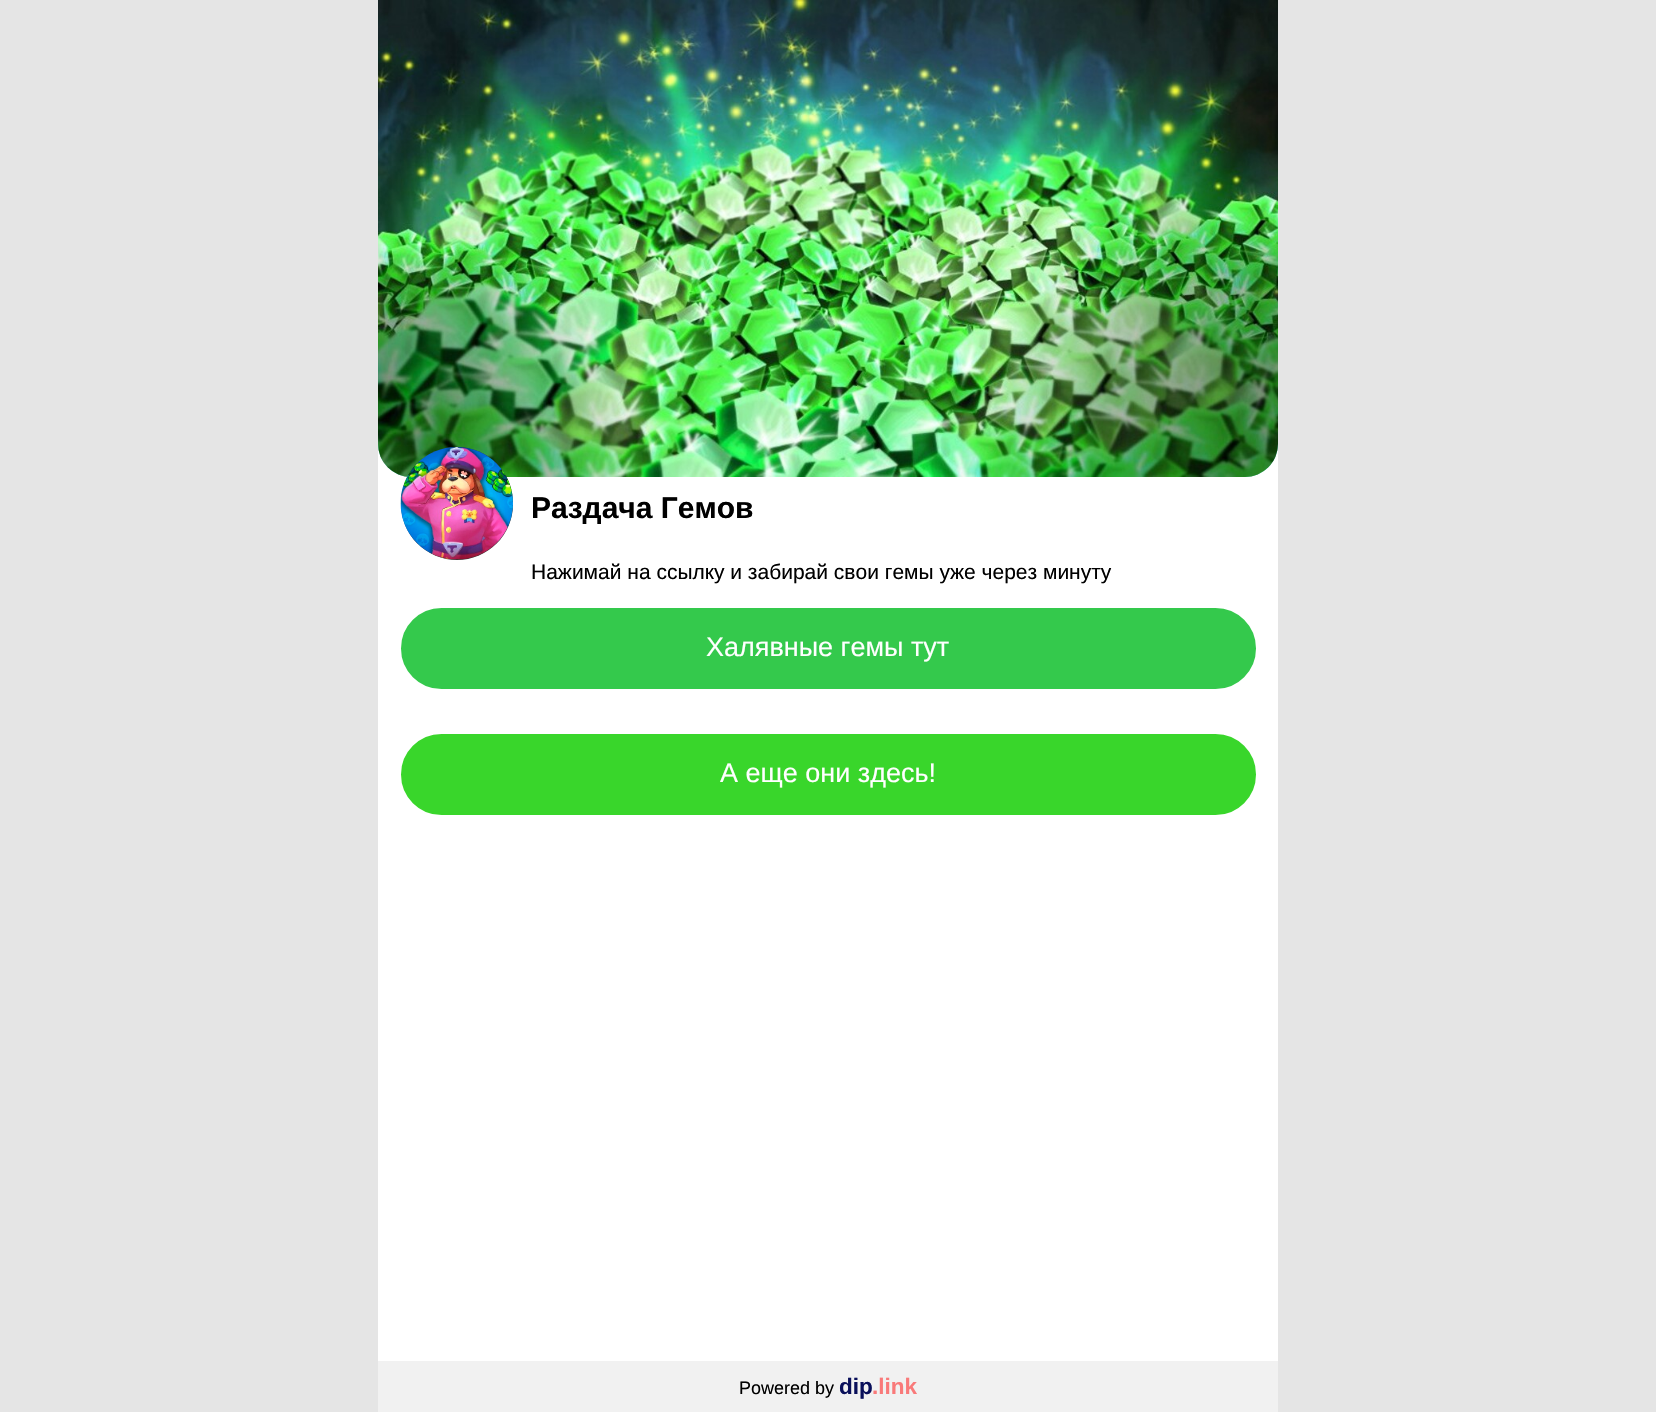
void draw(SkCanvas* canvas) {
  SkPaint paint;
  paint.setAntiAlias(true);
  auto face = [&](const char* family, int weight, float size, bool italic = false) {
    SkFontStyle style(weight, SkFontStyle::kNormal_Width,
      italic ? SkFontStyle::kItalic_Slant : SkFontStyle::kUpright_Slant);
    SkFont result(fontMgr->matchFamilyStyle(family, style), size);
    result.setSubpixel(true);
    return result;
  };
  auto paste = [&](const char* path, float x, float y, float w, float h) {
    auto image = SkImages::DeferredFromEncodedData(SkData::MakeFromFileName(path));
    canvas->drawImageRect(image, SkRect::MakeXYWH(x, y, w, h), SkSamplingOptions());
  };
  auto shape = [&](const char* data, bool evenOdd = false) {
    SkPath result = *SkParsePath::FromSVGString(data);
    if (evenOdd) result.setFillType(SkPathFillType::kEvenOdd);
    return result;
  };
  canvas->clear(0xffe5e5e5);
  paint.setColor(0xffffffff);
  canvas->drawRect(SkRect::MakeXYWH(378, 444, 900, 917), paint);
  paint.setColor(0xff59cec4);
  canvas->drawPath(shape("M378 0H1278V444C1278 462 1263 477 1245 477H411C393 477 378 462 378 444Z"), paint);
  paste("img/1.png", 378, 0, 900, 477);
  paint.setColor(0xff343434);
  canvas->drawRoundRect(SkRect::MakeXYWH(401, 447, 112, 113), 56, 56, paint);
  paste("img/2.png", 400, 447, 113, 113);
  paint.setColor(0xff34c94c);
  canvas->drawRoundRect(SkRect::MakeXYWH(402, 609, 853, 79), 39.5f, 39.5f, paint);
  paint.setStroke(true);
  paint.setStrokeWidth(2);
  canvas->drawRoundRect(SkRect::MakeXYWH(402, 609, 853, 79), 39.5f, 39.5f, paint);
  paint.setStroke(false);
  paint.setColor(0xff39d62b);
  canvas->drawRoundRect(SkRect::MakeXYWH(402, 735, 853, 79), 39.5f, 39.5f, paint);
  paint.setStroke(true);
  canvas->drawRoundRect(SkRect::MakeXYWH(402, 735, 853, 79), 39.5f, 39.5f, paint);
  paint.setStroke(false);
  paint.setColor(0xfff1f1f1);
  canvas->drawRect(SkRect::MakeXYWH(378, 1361, 900, 51), paint);
  auto f0 = face("Liberation Sans", 700, 30);
  paint.setColor(0xff000000);
  canvas->drawString("Раздача Гемов", 531, 518, f0, paint);
  auto f1 = face("Liberation Sans", 400, 21);
  canvas->drawString("Нажимай на ссылку и забирай свои гемы уже через минуту", 531, 579, f1, paint);
  auto f2 = face("Liberation Sans", 400, 27);
  paint.setColor(0xffffffff);
  canvas->drawString("Халявные гемы тут", 706, 656, f2, paint);
  canvas->drawString("А еще они здесь!", 720, 782, f2, paint);
  auto f3 = face("Liberation Sans", 400, 18);
  paint.setColor(0xff000000);
  canvas->drawString("Powered by", 739, 1394, f3, paint);
  auto f4 = face("Liberation Sans", 700, 22.5f);
  paint.setColor(0xff090f5a);
  canvas->drawString("dip", 839, 1394, f4, paint);
  paint.setColor(0xfff97a7a);
  canvas->drawString(".link", 872, 1394, f4, paint);
}
